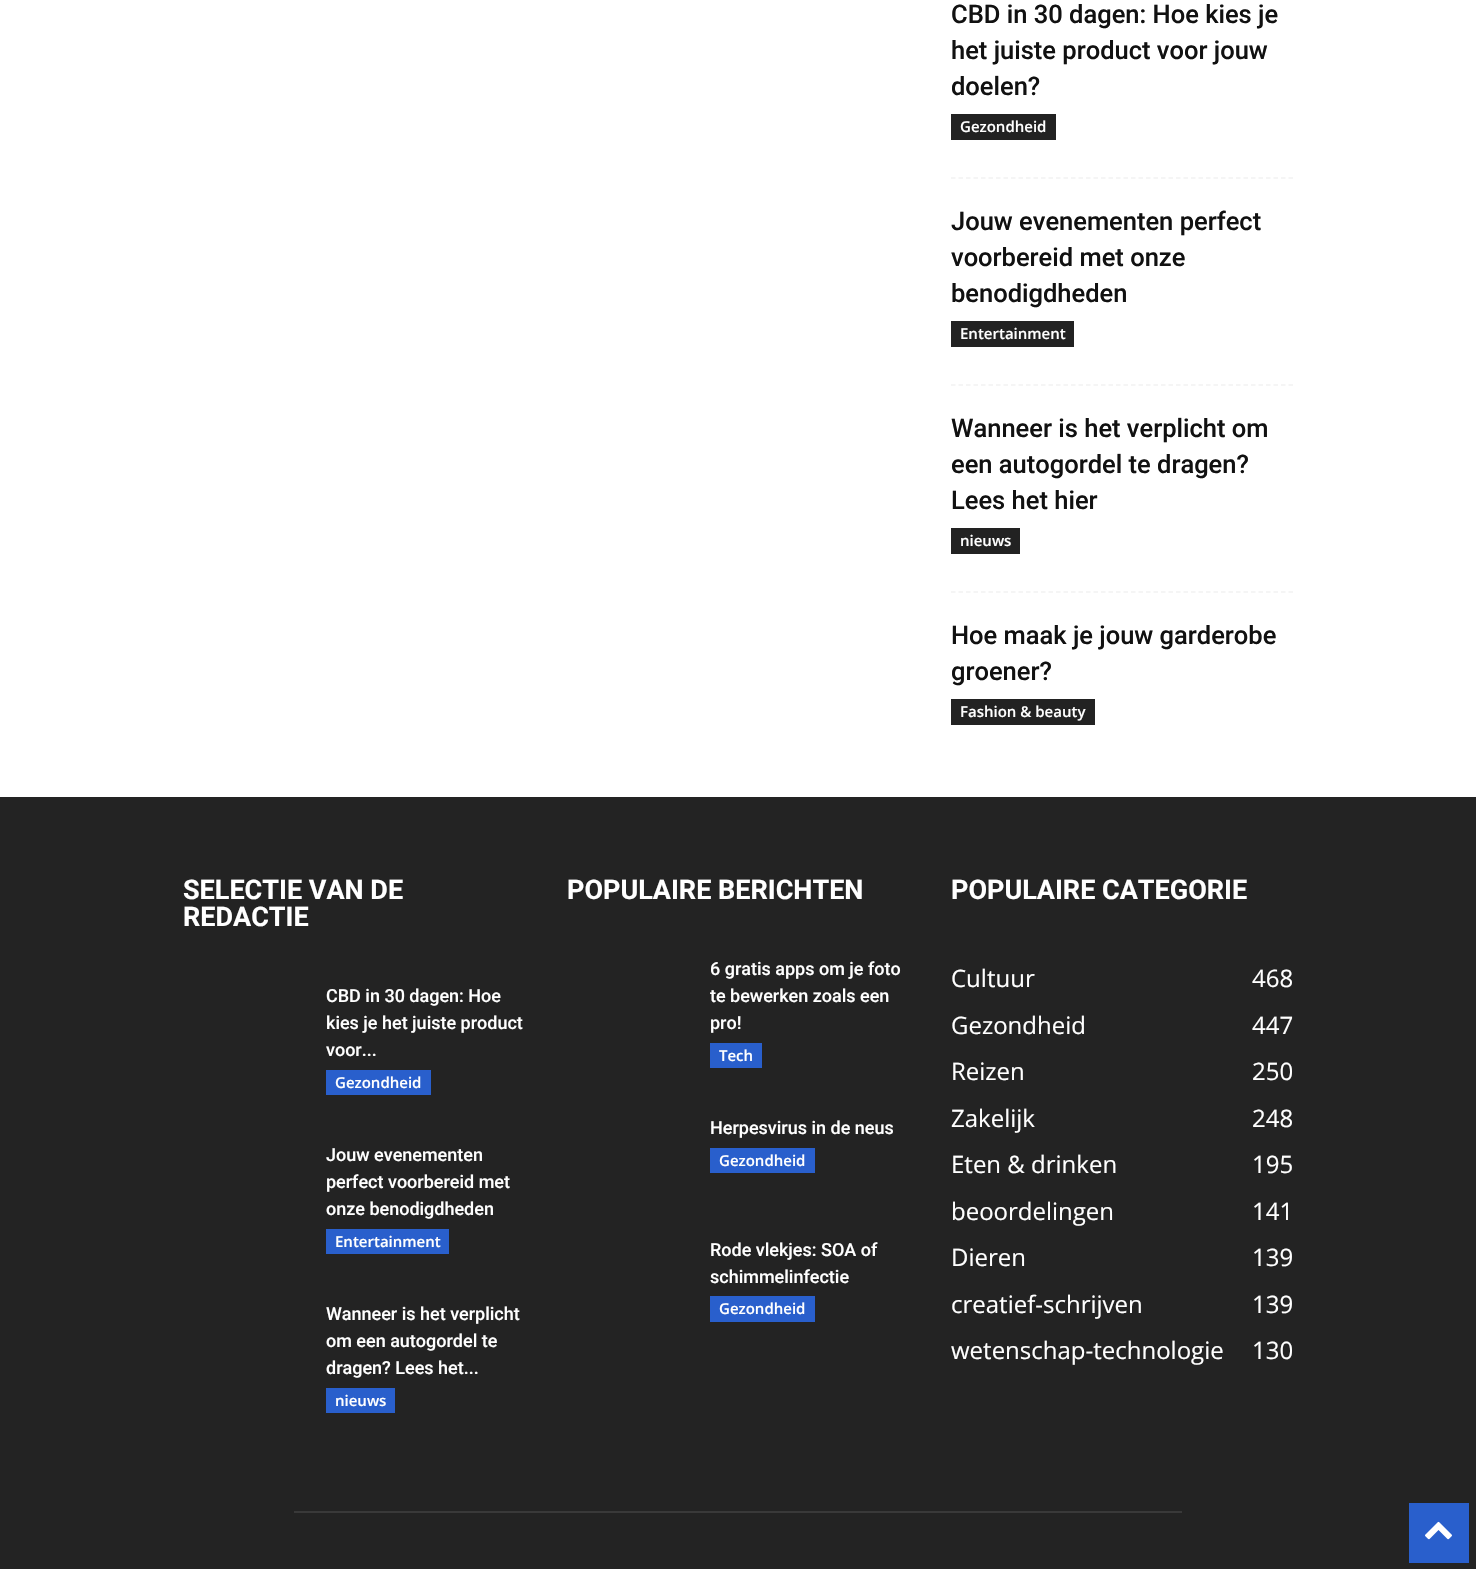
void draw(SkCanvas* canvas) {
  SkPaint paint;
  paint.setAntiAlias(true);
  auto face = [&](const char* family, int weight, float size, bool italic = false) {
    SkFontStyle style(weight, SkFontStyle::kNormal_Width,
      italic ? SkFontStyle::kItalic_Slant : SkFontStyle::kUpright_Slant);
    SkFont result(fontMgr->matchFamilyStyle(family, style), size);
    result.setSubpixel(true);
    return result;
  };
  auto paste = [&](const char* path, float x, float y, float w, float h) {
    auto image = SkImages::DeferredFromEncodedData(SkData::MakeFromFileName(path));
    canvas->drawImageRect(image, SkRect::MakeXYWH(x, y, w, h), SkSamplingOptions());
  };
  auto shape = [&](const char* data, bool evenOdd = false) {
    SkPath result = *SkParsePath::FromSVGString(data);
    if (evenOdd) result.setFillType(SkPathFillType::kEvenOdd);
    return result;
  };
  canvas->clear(0xffffffff);
  paint.setStroke(true);
  paint.setStrokeWidth(1.5f);
  paint.setColor(0xfff2f2f2);
  paint.setPathEffect(SkDashPathEffect::Make({{4.5f, 3}}, 0));
  canvas->drawPath(shape("M951 178H1293"), paint);
  paint.setPathEffect(nullptr);
  paint.setStroke(false);
  paint.setColor(0xff222222);
  canvas->drawRect(SkRect::MakeXYWH(951, 114, 105, 26), paint);
  paint.setStroke(true);
  paint.setColor(0xfff2f2f2);
  paint.setPathEffect(SkDashPathEffect::Make({{4.5f, 3}}, 0));
  canvas->drawPath(shape("M951 385H1293"), paint);
  paint.setPathEffect(nullptr);
  paint.setStroke(false);
  paint.setColor(0xff222222);
  canvas->drawRect(SkRect::MakeXYWH(951, 321, 123, 26), paint);
  paint.setStroke(true);
  paint.setColor(0xfff2f2f2);
  paint.setPathEffect(SkDashPathEffect::Make({{4.5f, 3}}, 0));
  canvas->drawPath(shape("M951 592H1293"), paint);
  paint.setPathEffect(nullptr);
  paint.setStroke(false);
  {
    const struct { float x, y, w, h; SkColor color; } items[] = {
      {951, 528, 69, 26, 0xff222222},
      {951, 699, 144, 26, 0xff222222},
      {0, 797, 1476, 772, 0xff232323},
      {326, 1070, 105, 25, 0xff295fcc},
      {326, 1229, 123, 25, 0xff295fcc},
      {326, 1388, 69, 25, 0xff295fcc},
      {710, 1043, 52, 25, 0xff295fcc},
      {710, 1148, 105, 25, 0xff295fcc},
      {710, 1296, 105, 26, 0xff295fcc},
      {294, 1511, 888, 2, 0xff393939},
      {1409, 1503, 60, 60, 0xff295fcc},
    };
    for (auto [x, y, w, h, color] : items) {
      paint.setColor(color);
      canvas->drawRect(SkRect::MakeXYWH(x, y, w, h), paint);
    }
  }
  paste("img/1.png", 1425, 1521, 27, 19);
  auto f0 = face("Roboto", 500, 25.5f);
  paint.setColor(0xff111111);
  {
    const struct { const char* s; float x, y; } items[] = {
      {"CBD in 30 dagen: Hoe kies je", 951, 23},
      {"het juiste product voor jouw", 951, 59},
      {"doelen?", 951, 95},
    };
    for (auto [s, x, y] : items) {
      canvas->drawString(s, x, y, f0, paint);
    }
  }
  auto f1 = face("Open Sans", 600, 15);
  paint.setColor(0xffffffff);
  canvas->drawString("Gezondheid", 960, 132, f1, paint);
  paint.setColor(0xff111111);
  {
    const struct { const char* s; float x, y; } items[] = {
      {"Jouw evenementen perfect", 951, 230},
      {"voorbereid met onze", 951, 266},
      {"benodigdheden", 951, 302},
    };
    for (auto [s, x, y] : items) {
      canvas->drawString(s, x, y, f0, paint);
    }
  }
  paint.setColor(0xffffffff);
  canvas->drawString("Entertainment", 960, 339, f1, paint);
  paint.setColor(0xff111111);
  {
    const struct { const char* s; float x, y; } items[] = {
      {"Wanneer is het verplicht om", 951, 437},
      {"een autogordel te dragen?", 951, 473},
      {"Lees het hier", 951, 509},
    };
    for (auto [s, x, y] : items) {
      canvas->drawString(s, x, y, f0, paint);
    }
  }
  paint.setColor(0xffffffff);
  canvas->drawString("nieuws", 960, 546, f1, paint);
  paint.setColor(0xff111111);
  canvas->drawString("Hoe maak je jouw garderobe", 951, 644, f0, paint);
  canvas->drawString("groener?", 951, 680, f0, paint);
  paint.setColor(0xffffffff);
  canvas->drawString("Fashion & beauty", 960, 717, f1, paint);
  auto f2 = face("Roboto", 700, 27);
  canvas->drawString("SELECTIE VAN DE", 183, 899, f2, paint);
  canvas->drawString("REDACTIE", 183, 926, f2, paint);
  auto f3 = face("Roboto", 500, 18);
  {
    const struct { const char* s; float x, y; } items[] = {
      {"CBD in 30 dagen: Hoe", 326, 1002},
      {"kies je het juiste product", 326, 1029},
      {"voor...", 326, 1056},
    };
    for (auto [s, x, y] : items) {
      canvas->drawString(s, x, y, f3, paint);
    }
  }
  canvas->drawString("Gezondheid", 335, 1088, f1, paint);
  {
    const struct { const char* s; float x, y; } items[] = {
      {"Jouw evenementen", 326, 1161},
      {"perfect voorbereid met", 326, 1188},
      {"onze benodigdheden", 326, 1215},
    };
    for (auto [s, x, y] : items) {
      canvas->drawString(s, x, y, f3, paint);
    }
  }
  canvas->drawString("Entertainment", 335, 1247, f1, paint);
  {
    const struct { const char* s; float x, y; } items[] = {
      {"Wanneer is het verplicht", 326, 1320},
      {"om een autogordel te", 326, 1347},
      {"dragen? Lees het...", 326, 1374},
    };
    for (auto [s, x, y] : items) {
      canvas->drawString(s, x, y, f3, paint);
    }
  }
  canvas->drawString("nieuws", 335, 1406, f1, paint);
  canvas->drawString("POPULAIRE BERICHTEN", 567, 899, f2, paint);
  {
    const struct { const char* s; float x, y; } items[] = {
      {"6 gratis apps om je foto", 710, 975},
      {"te bewerken zoals een", 710, 1002},
      {"pro!", 710, 1029},
    };
    for (auto [s, x, y] : items) {
      canvas->drawString(s, x, y, f3, paint);
    }
  }
  canvas->drawString("Tech", 719, 1061, f1, paint);
  canvas->drawString("Herpesvirus in de neus", 710, 1134, f3, paint);
  canvas->drawString("Gezondheid", 719, 1166, f1, paint);
  canvas->drawString("Rode vlekjes: SOA of", 710, 1256, f3, paint);
  canvas->drawString("schimmelinfectie", 710, 1283, f3, paint);
  canvas->drawString("Gezondheid", 719, 1314, f1, paint);
  canvas->drawString("POPULAIRE CATEGORIE", 951, 899, f2, paint);
  auto f4 = face("Open Sans", 400, 24);
  {
    const struct { const char* s; float x, y; } items[] = {
      {"Cultuur", 951, 987},
      {"468", 1252, 987},
      {"Gezondheid", 951, 1034},
      {"447", 1252, 1034},
      {"Reizen", 951, 1080},
      {"250", 1252, 1080},
      {"Zakelijk", 951, 1127},
      {"248", 1252, 1127},
      {"Eten & drinken", 951, 1173},
      {"195", 1252, 1173},
      {"beoordelingen", 951, 1220},
      {"141", 1252, 1220},
      {"Dieren", 951, 1266},
      {"139", 1252, 1266},
      {"creatief-schrijven", 951, 1313},
      {"139", 1252, 1313},
      {"wetenschap-technologie", 951, 1359},
      {"130", 1252, 1359},
    };
    for (auto [s, x, y] : items) {
      canvas->drawString(s, x, y, f4, paint);
    }
  }
}
